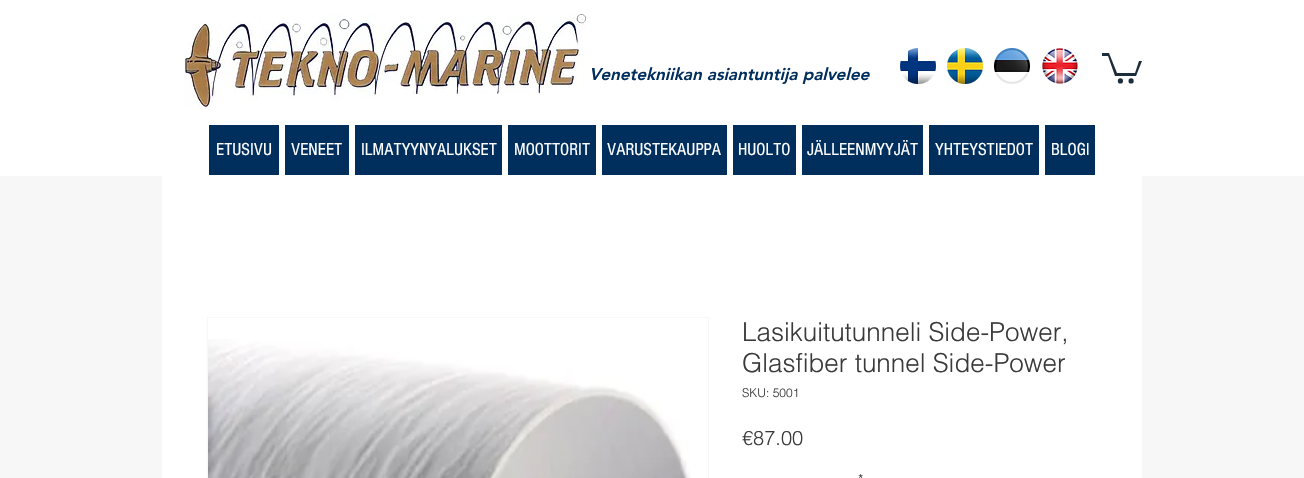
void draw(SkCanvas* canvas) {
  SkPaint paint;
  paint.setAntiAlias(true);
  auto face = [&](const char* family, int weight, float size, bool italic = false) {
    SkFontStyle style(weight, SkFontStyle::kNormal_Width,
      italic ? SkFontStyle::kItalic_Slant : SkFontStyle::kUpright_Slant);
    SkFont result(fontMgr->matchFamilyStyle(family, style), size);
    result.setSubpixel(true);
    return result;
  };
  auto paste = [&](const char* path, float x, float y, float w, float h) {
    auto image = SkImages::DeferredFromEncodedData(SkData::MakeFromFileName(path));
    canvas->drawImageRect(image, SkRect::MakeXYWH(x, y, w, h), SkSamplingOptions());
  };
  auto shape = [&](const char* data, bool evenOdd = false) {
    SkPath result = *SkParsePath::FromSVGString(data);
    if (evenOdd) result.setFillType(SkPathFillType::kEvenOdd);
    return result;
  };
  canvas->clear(0xfff7f7f7);
  paint.setColor(0xffffffff);
  canvas->drawRect(SkRect::MakeXYWH(0, 0, 1304, 176), paint);
  paste("img/1.png", 185, 14, 401, 93);
  paste("img/2.png", 900, 48, 36, 36);
  paste("img/3.png", 947, 48, 36, 36);
  paste("img/4.png", 994, 48, 36, 36);
  paste("img/5.png", 1042, 48, 36, 36);
  paint.setColor(0xff1e2d3b);
  canvas->drawPath(shape("M1142 61L1136 76H1115L1108 56H1102V53H1109L1117 73H1135L1139 61"), paint);
  canvas->drawCircle(1131.1f, 80.9f, 2.6f, paint);
  canvas->drawCircle(1120.4f, 80.9f, 2.6f, paint);
  {
    const struct { float x, y, w, h; SkColor color; } items[] = {
      {209, 125, 70, 50, 0xff002e5d},
      {285, 125, 64, 50, 0xff002e5d},
      {355, 125, 147, 50, 0xff002e5d},
      {508, 125, 88, 50, 0xff002e5d},
      {602, 125, 125, 50, 0xff002e5d},
      {733, 125, 63, 50, 0xff002e5d},
      {802, 125, 121, 50, 0xff002e5d},
      {929, 125, 110, 50, 0xff002e5d},
      {1045, 125, 50, 50, 0xff002e5d},
      {162, 176, 980, 302, 0xffffffff},
    };
    for (auto [x, y, w, h, color] : items) {
      paint.setColor(color);
      canvas->drawRect(SkRect::MakeXYWH(x, y, w, h), paint);
    }
  }
  paint.setStroke(true);
  paint.setStrokeWidth(1);
  paint.setColor(0xfff7f7f7);
  canvas->drawRect(SkRect::MakeXYWH(207.5f, 317.5f, 501, 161), paint);
  paste("img/6.png", 208, 339, 483, 139);
  auto f0 = face("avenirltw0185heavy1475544", 900, 17, true);
  paint.setStroke(false);
  paint.setColor(0xff002e5d);
  canvas->drawString("Venetekniikan asiantuntija palvelee", 589, 80, f0, paint);
  auto f1 = face("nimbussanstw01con", 400, 18);
  paint.setColor(0xffffffff);
  {
    const struct { const char* s; float x, y; } items[] = {
      {"ETUSIVU", 216, 155},
      {"VENEET", 291, 155},
      {"ILMATYYNYALUKSET", 361, 155},
      {"MOOTTORIT", 514, 155},
      {"VARUSTEKAUPPA", 607, 155},
      {"HUOLTO", 738, 155},
      {"JÄLLEENMYYJÄT", 807, 155},
      {"YHTEYSTIEDOT", 935, 155},
      {"BLOGI", 1051, 155},
    };
    for (auto [s, x, y] : items) {
      canvas->drawString(s, x, y, f1, paint);
    }
  }
  auto f2 = face("helvetica", 300, 26);
  paint.setColor(0xff3b3a3a);
  canvas->drawString("Lasikuitutunneli Side-Power,", 742, 341, f2, paint);
  canvas->drawString("Glasfiber tunnel Side-Power", 742, 372, f2, paint);
  auto f3 = face("helvetica", 300, 12);
  canvas->drawString("SKU: 5001", 742, 397, f3, paint);
  auto f4 = face("helvetica", 300, 20);
  canvas->drawString("€87.00", 742, 445, f4, paint);
  auto f5 = face("helvetica", 300, 14);
  canvas->drawString("*", 858, 484, f5, paint);
}
